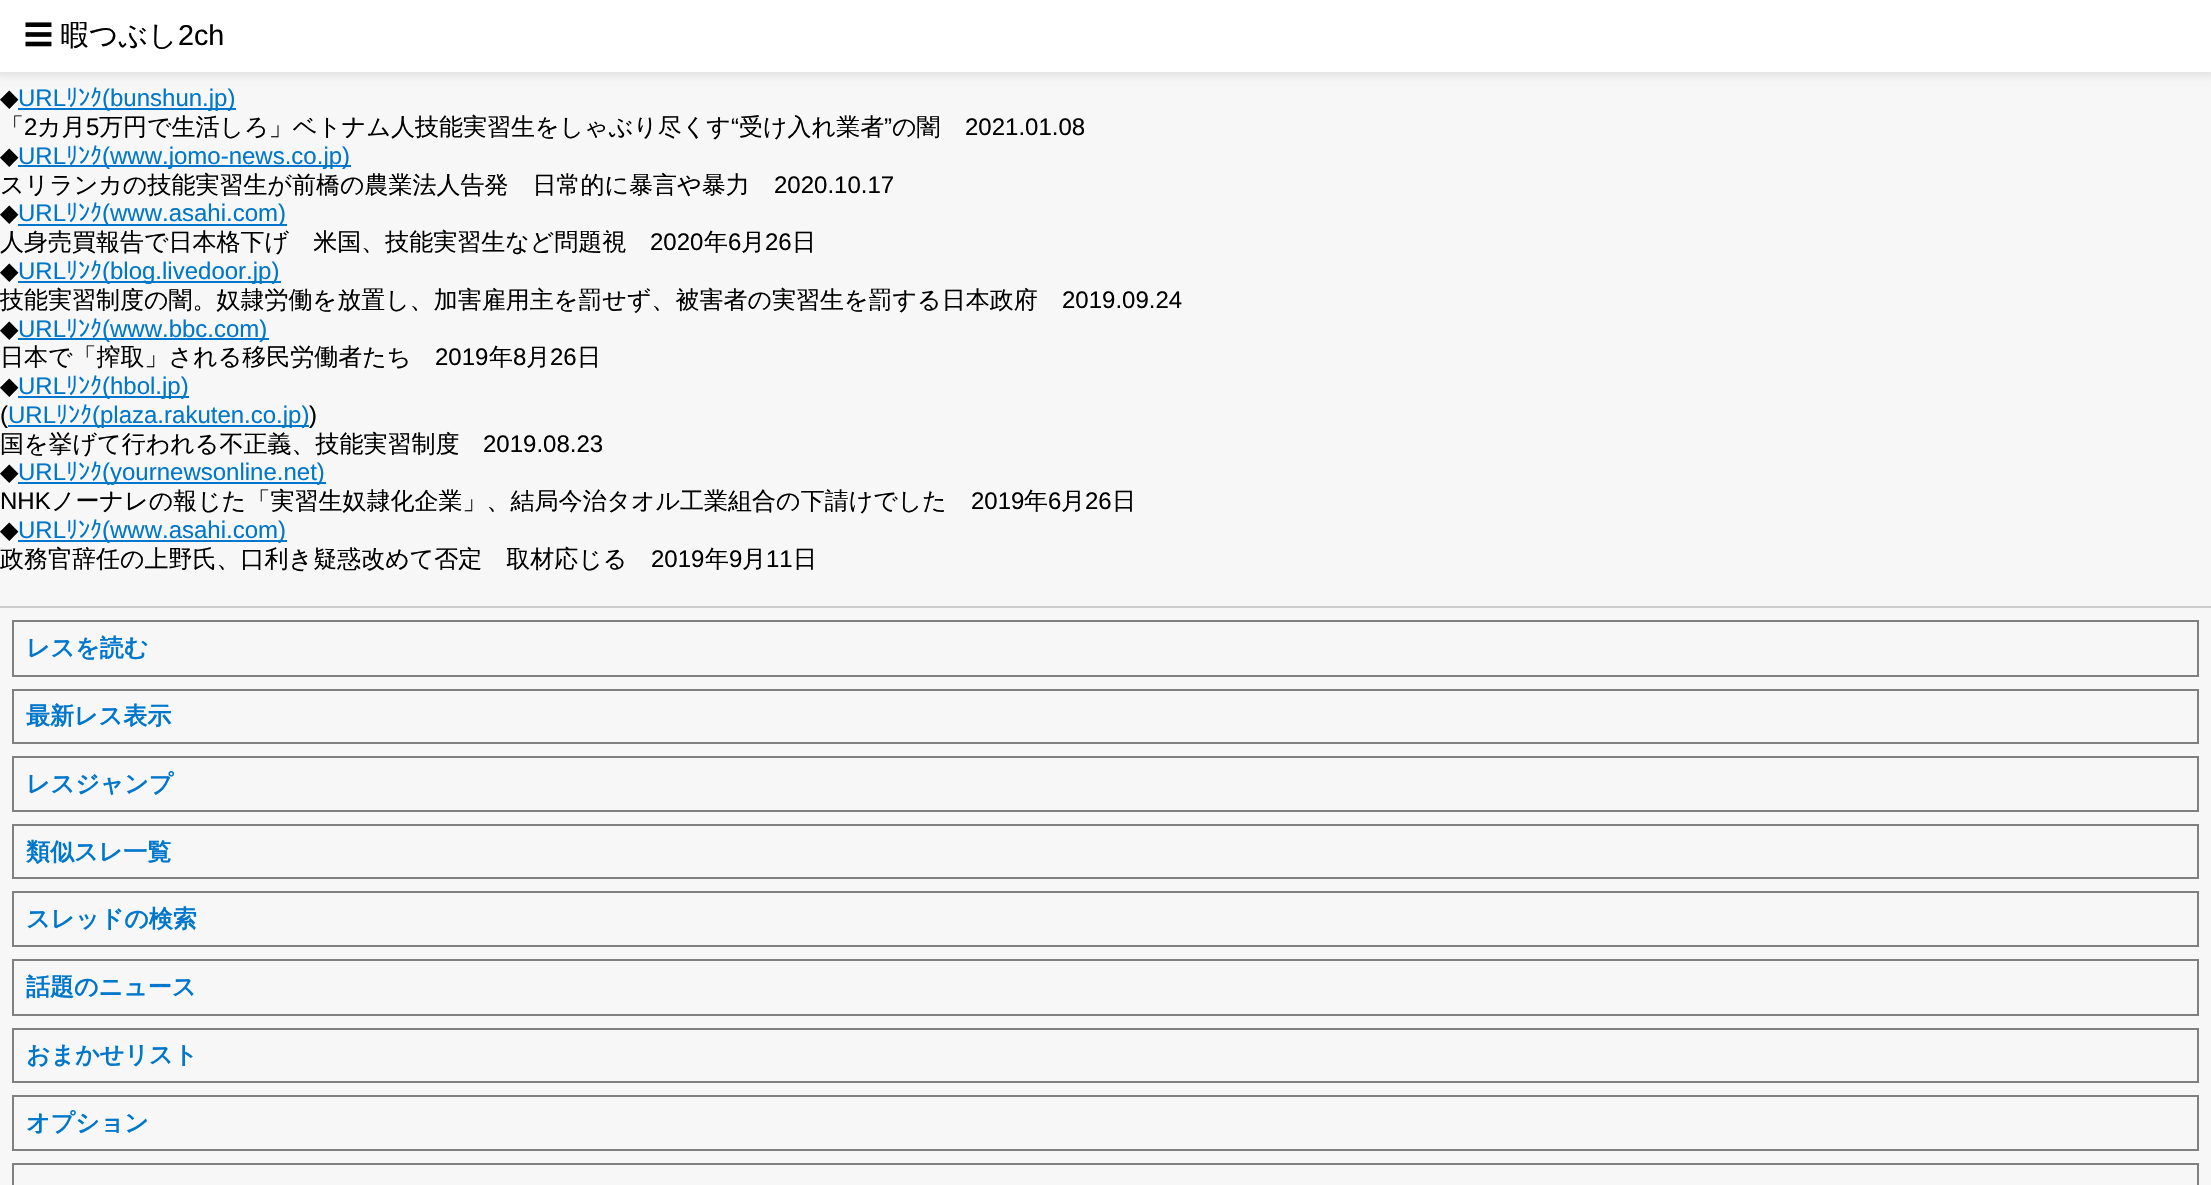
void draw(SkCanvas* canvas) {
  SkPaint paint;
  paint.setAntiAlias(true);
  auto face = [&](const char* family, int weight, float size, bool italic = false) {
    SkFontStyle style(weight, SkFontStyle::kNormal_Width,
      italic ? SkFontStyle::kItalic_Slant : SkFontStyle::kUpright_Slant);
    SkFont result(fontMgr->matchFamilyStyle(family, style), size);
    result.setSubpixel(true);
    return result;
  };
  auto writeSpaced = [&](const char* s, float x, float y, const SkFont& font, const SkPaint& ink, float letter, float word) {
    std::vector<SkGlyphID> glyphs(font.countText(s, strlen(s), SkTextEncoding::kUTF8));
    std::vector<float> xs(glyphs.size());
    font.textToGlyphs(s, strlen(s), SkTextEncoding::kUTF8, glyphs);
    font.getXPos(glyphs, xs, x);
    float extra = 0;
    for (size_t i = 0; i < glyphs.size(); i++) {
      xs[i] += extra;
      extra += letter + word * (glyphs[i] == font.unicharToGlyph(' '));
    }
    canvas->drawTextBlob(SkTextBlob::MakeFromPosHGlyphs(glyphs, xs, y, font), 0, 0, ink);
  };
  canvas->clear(0xfff7f7f7);
  paint.setColor(0x1a000000);
  paint.setMaskFilter(SkMaskFilter::MakeBlur(kNormal_SkBlurStyle, 4));
  canvas->drawRect(SkRect::MakeXYWH(-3, -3, 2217, 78), paint);
  paint.setMaskFilter(nullptr);
  {
    const struct { float x, y, w, h; SkColor color; } items[] = {
      {0, 0, 2211, 72, 0xffffffff},
      {18, 224, 269, 2, 0xff0077cc},
      {8, 425, 301, 2, 0xff0077cc},
      {0, 606, 2211, 2, 0xffcccccc},
    };
    for (auto [x, y, w, h, color] : items) {
      paint.setColor(color);
      canvas->drawRect(SkRect::MakeXYWH(x, y, w, h), paint);
    }
  }
  paint.setStroke(true);
  paint.setStrokeWidth(2);
  paint.setColor(0xff808080);
  canvas->drawRect(SkRect::MakeXYWH(13, 621, 2185, 55), paint);
  canvas->drawRect(SkRect::MakeXYWH(13, 690, 2185, 53), paint);
  canvas->drawRect(SkRect::MakeXYWH(13, 757, 2185, 54), paint);
  canvas->drawRect(SkRect::MakeXYWH(13, 825, 2185, 53), paint);
  canvas->drawRect(SkRect::MakeXYWH(13, 892, 2185, 54), paint);
  canvas->drawRect(SkRect::MakeXYWH(13, 960, 2185, 55), paint);
  canvas->drawRect(SkRect::MakeXYWH(13, 1029, 2185, 53), paint);
  canvas->drawRect(SkRect::MakeXYWH(13, 1096, 2185, 54), paint);
  canvas->drawRect(SkRect::MakeXYWH(13, 1164, 2185, 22), paint);
  auto f0 = face("WenQuanYi Zen Hei", 500, 28.75f);
  paint.setStroke(false);
  paint.setColor(0xff000000);
  writeSpaced("☰ 暇つぶし", 24, 45, f0, paint, 0, -1);
  auto f1 = face("Liberation Sans", 400, 28.75f);
  canvas->drawString("2ch", 178, 45, f1, paint);
  auto f2 = face("DejaVu Sans", 400, 24);
  canvas->drawString("◆", 0, 106, f2, paint);
  auto f3 = face("Liberation Sans", 400, 24);
  paint.setColor(0xff0077cc);
  canvas->drawString("URL", 18, 106, f3, paint);
  auto f4 = face("IPAGothic", 400, 24);
  canvas->drawString("ﾘﾝｸ", 66, 106, f4, paint);
  canvas->drawRect(SkRect::MakeXYWH(18, 108, 218, 2), paint);
  canvas->drawString("(bunshun.jp)", 102, 106, f3, paint);
  auto f5 = face("WenQuanYi Zen Hei", 500, 24);
  paint.setColor(0xff000000);
  canvas->drawString("「", 0, 135, f5, paint);
  canvas->drawString("2", 24, 135, f3, paint);
  canvas->drawString("カ月", 37, 135, f5, paint);
  canvas->drawString("5", 86, 135, f3, paint);
  canvas->drawString("万円で生活しろ」ベトナム人技能実習生をしゃぶり尽くす", 99, 135, f5, paint);
  canvas->drawString("“", 731, 135, f3, paint);
  canvas->drawString("受け入れ業者", 739, 135, f5, paint);
  canvas->drawString("”", 884, 135, f3, paint);
  canvas->drawString("の闇", 892, 135, f5, paint);
  canvas->drawString("2021.01.08", 965, 135, f3, paint);
  canvas->drawString("◆", 0, 164, f2, paint);
  paint.setColor(0xff0077cc);
  canvas->drawString("URL", 18, 164, f3, paint);
  canvas->drawRect(SkRect::MakeXYWH(18, 165, 333, 2), paint);
  canvas->drawString("(www.jomo-news.co.jp)", 102, 164, f3, paint);
  canvas->drawString("ﾘﾝｸ", 66, 164, f4, paint);
  paint.setColor(0xff000000);
  canvas->drawString("スリランカの技能実習生が前橋の農業法人告発　日常的に暴言や暴力", 0, 193, f5, paint);
  canvas->drawString("2020.10.17", 774, 193, f3, paint);
  canvas->drawString("◆", 0, 221, f2, paint);
  paint.setColor(0xff0077cc);
  canvas->drawString("URL", 18, 221, f3, paint);
  canvas->drawString("ﾘﾝｸ", 66, 221, f4, paint);
  canvas->drawString("(www.asahi.com)", 102, 221, f3, paint);
  paint.setColor(0xff000000);
  canvas->drawString("人身売買報告で日本格下げ　米国、技能実習生など問題視", 0, 250, f5, paint);
  canvas->drawString("2020", 650, 250, f3, paint);
  canvas->drawString("年", 704, 250, f5, paint);
  canvas->drawString("6", 728, 250, f3, paint);
  canvas->drawString("月", 741, 250, f5, paint);
  canvas->drawString("26", 765, 250, f3, paint);
  canvas->drawString("日", 792, 250, f5, paint);
  canvas->drawString("◆", 0, 279, f2, paint);
  paint.setColor(0xff0077cc);
  canvas->drawString("URL", 18, 279, f3, paint);
  canvas->drawString("ﾘﾝｸ", 66, 279, f4, paint);
  canvas->drawRect(SkRect::MakeXYWH(18, 281, 263, 2), paint);
  canvas->drawString("(blog.livedoor.jp)", 102, 279, f3, paint);
  paint.setColor(0xff000000);
  canvas->drawString("技能実習制度の闇。奴隷労働を放置し、加害雇用主を罰せず、被害者の実習生を罰する日本政府", 0, 308, f5, paint);
  canvas->drawString("2019.09.24", 1062, 308, f3, paint);
  canvas->drawString("◆", 0, 337, f2, paint);
  paint.setColor(0xff0077cc);
  canvas->drawString("URL", 18, 337, f3, paint);
  canvas->drawRect(SkRect::MakeXYWH(18, 338, 251, 2), paint);
  canvas->drawString("(www.bbc.com)", 102, 337, f3, paint);
  canvas->drawString("ﾘﾝｸ", 66, 337, f4, paint);
  paint.setColor(0xff000000);
  canvas->drawString("日本で「搾取」される移民労働者たち", 0, 365, f5, paint);
  canvas->drawString("2019", 435, 365, f3, paint);
  canvas->drawString("年", 489, 365, f5, paint);
  canvas->drawString("8", 513, 365, f3, paint);
  canvas->drawString("月", 526, 365, f5, paint);
  canvas->drawString("26", 550, 365, f3, paint);
  canvas->drawString("日", 577, 365, f5, paint);
  canvas->drawString("◆", 0, 394, f2, paint);
  paint.setColor(0xff0077cc);
  canvas->drawString("URL", 18, 394, f3, paint);
  canvas->drawString("ﾘﾝｸ", 66, 394, f4, paint);
  canvas->drawRect(SkRect::MakeXYWH(18, 396, 171, 2), paint);
  canvas->drawString("(hbol.jp)", 102, 394, f3, paint);
  paint.setColor(0xff000000);
  canvas->drawString("(", 0, 423, f3, paint);
  paint.setColor(0xff0077cc);
  canvas->drawString("URL", 8, 423, f3, paint);
  canvas->drawString("ﾘﾝｸ", 56, 423, f4, paint);
  canvas->drawString("(plaza.rakuten.co.jp)", 92, 423, f3, paint);
  paint.setColor(0xff000000);
  canvas->drawString(")", 309, 423, f3, paint);
  canvas->drawString("国を挙げて行われる不正義、技能実習制度", 0, 452, f5, paint);
  canvas->drawString("2019.08.23", 483, 452, f3, paint);
  canvas->drawString("◆", 0, 480, f2, paint);
  paint.setColor(0xff0077cc);
  canvas->drawString("URL", 18, 480, f3, paint);
  canvas->drawString("ﾘﾝｸ", 66, 480, f4, paint);
  canvas->drawRect(SkRect::MakeXYWH(18, 482, 308, 2), paint);
  canvas->drawString("(yournewsonline.net)", 102, 480, f3, paint);
  paint.setColor(0xff000000);
  canvas->drawString("NHK", 0, 509, f3, paint);
  canvas->drawString("ノーナレの報じた「実習生奴隷化企業」、結局今治タオル工業組合の下請けでした", 51, 509, f5, paint);
  canvas->drawString("2019", 971, 509, f3, paint);
  canvas->drawString("年", 1024, 509, f5, paint);
  canvas->drawString("6", 1048, 509, f3, paint);
  canvas->drawString("月", 1061, 509, f5, paint);
  canvas->drawString("26", 1085, 509, f3, paint);
  canvas->drawString("日", 1112, 509, f5, paint);
  canvas->drawString("◆", 0, 538, f2, paint);
  paint.setColor(0xff0077cc);
  canvas->drawString("URL", 18, 538, f3, paint);
  canvas->drawString("ﾘﾝｸ", 66, 538, f4, paint);
  canvas->drawRect(SkRect::MakeXYWH(18, 540, 269, 2), paint);
  canvas->drawString("(www.asahi.com)", 102, 538, f3, paint);
  paint.setColor(0xff000000);
  canvas->drawString("政務官辞任の上野氏、口利き疑惑改めて否定　取材応じる", 0, 567, f5, paint);
  canvas->drawString("2019", 651, 567, f3, paint);
  canvas->drawString("年", 705, 567, f5, paint);
  canvas->drawString("9", 729, 567, f3, paint);
  canvas->drawString("月", 742, 567, f5, paint);
  canvas->drawString("11", 766, 567, f3, paint);
  canvas->drawString("日", 793, 567, f5, paint);
  auto f6 = face("WenQuanYi Zen Hei", 700, 24);
  paint.setColor(0xff0077cc);
  {
    const struct { const char* s; float x, y; } items[] = {
      {"レスを読む", 26, 656},
      {"最新レス表示", 26, 724},
      {"レスジャンプ", 26, 792},
      {"類似スレ一覧", 26, 860},
      {"スレッドの検索", 26, 927},
      {"話題のニュース", 26, 995},
      {"おまかせリスト", 26, 1063},
      {"オプション", 26, 1131},
    };
    for (auto [s, x, y] : items) {
      canvas->drawString(s, x, y, f6, paint);
    }
  }
}
